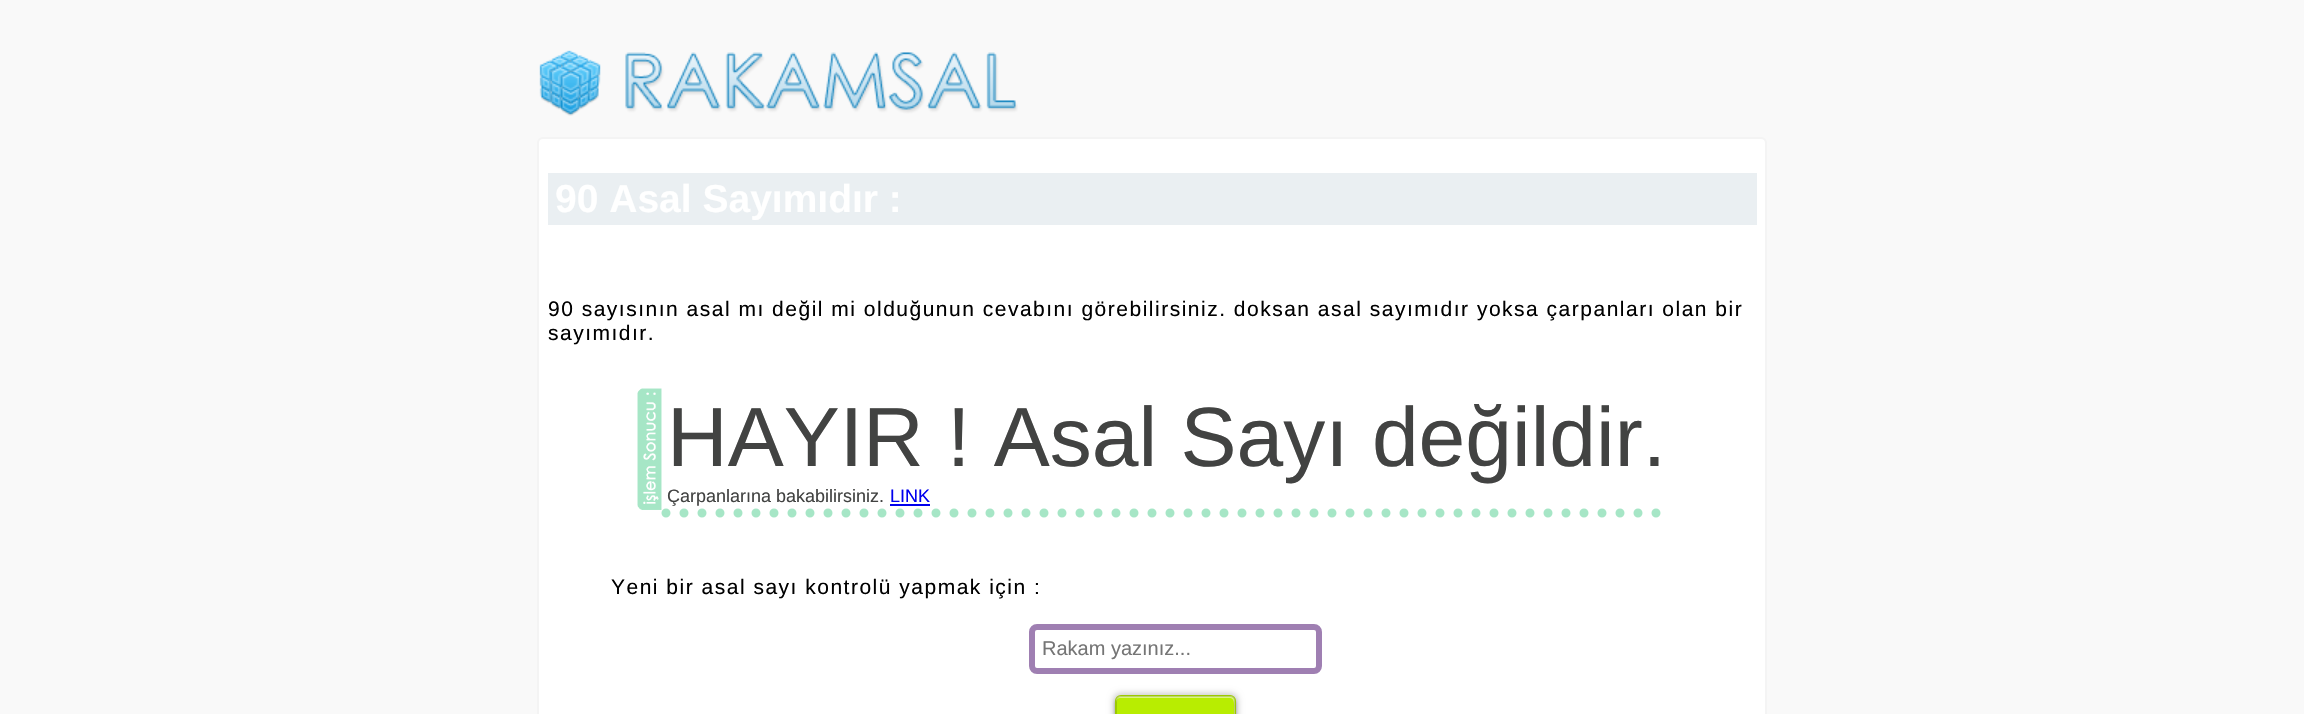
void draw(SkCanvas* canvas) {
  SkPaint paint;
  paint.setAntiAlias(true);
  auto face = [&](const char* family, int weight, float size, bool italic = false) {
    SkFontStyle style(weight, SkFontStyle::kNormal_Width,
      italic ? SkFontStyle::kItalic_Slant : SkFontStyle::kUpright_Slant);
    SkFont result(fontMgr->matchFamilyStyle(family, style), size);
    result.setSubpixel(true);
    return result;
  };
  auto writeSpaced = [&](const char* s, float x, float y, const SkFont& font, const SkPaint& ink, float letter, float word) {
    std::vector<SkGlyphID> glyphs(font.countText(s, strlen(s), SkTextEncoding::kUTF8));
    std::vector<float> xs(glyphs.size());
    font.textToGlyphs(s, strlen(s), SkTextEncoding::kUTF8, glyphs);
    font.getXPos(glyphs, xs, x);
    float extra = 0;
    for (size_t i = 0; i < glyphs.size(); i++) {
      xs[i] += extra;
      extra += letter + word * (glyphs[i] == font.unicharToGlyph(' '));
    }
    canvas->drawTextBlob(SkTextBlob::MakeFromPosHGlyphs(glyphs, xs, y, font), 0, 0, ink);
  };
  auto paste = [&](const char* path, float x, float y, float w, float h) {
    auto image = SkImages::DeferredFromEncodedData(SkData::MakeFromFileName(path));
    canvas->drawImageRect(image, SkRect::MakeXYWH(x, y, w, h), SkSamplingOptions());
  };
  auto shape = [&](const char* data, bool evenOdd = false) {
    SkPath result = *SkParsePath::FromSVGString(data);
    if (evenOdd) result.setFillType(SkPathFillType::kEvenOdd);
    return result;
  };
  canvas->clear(0xfff9f9f9);
  paste("img/1.png", 539, 50, 479, 66);
  paint.setColor(0xffffffff);
  canvas->drawRoundRect(SkRect::MakeXYWH(538, 138, 1228, 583), 5, 5, paint);
  paint.setStroke(true);
  paint.setStrokeWidth(2);
  paint.setColor(0xfff4f4f4);
  canvas->drawRoundRect(SkRect::MakeXYWH(538, 138, 1228, 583), 5, 5, paint);
  paint.setStroke(false);
  paint.setColor(0xffeaeff2);
  canvas->drawRect(SkRect::MakeXYWH(548, 173, 1209, 52), paint);
  paint.setStroke(true);
  paint.setStrokeWidth(9);
  paint.setStrokeCap(SkPaint::kRound_Cap);
  paint.setColor(0xffa6e6c6);
  paint.setPathEffect(SkDashPathEffect::Make({{0, 18}}, 0));
  canvas->drawPath(shape("M666 513H1668"), paint);
  paint.setPathEffect(nullptr);
  paste("img/2.png", 637, 388, 25, 122);
  paint.setStroke(false);
  paint.setColor(0xff0000ee);
  canvas->drawRect(SkRect::MakeXYWH(890, 504, 40, 2), paint);
  paint.setStroke(true);
  paint.setStrokeWidth(6);
  paint.setStrokeCap(SkPaint::kButt_Cap);
  paint.setColor(0xff9f7fb2);
  canvas->drawRoundRect(SkRect::MakeXYWH(1032, 627, 287, 44), 5, 5, paint);
  paint.setStroke(false);
  paint.setColor(0x33000000);
  paint.setMaskFilter(SkMaskFilter::MakeBlur(kNormal_SkBlurStyle, 3));
  canvas->drawRoundRect(SkRect::MakeXYWH(1113, 693, 125, 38), 8, 8, paint);
  paint.setMaskFilter(nullptr);
  paint.setColor(0x4d000000);
  paint.setMaskFilter(SkMaskFilter::MakeBlur(kNormal_SkBlurStyle, 1.5f));
  canvas->drawRoundRect(SkRect::MakeXYWH(1115, 698, 121, 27), 6, 6, paint);
  paint.setMaskFilter(nullptr);
  paint.setColor(0xffb8ed01);
  canvas->drawRoundRect(SkRect::MakeXYWH(1115, 695, 121, 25), 6, 6, paint);
  paint.setColor(0xffdcf680);
  canvas->drawPath(shape("M1120 698H1230C1235 698 1234 706 1234 708V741C1235 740 1235 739 1235 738V701C1235 698 1233 696 1230 696H1121C1118 696 1116 698 1116 701V702C1116 700 1118 698 1120 698Z"), paint);
  paint.setStroke(true);
  paint.setStrokeWidth(2);
  paint.setColor(0x26000000);
  canvas->drawRoundRect(SkRect::MakeXYWH(1116, 696, 119, 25), 5, 5, paint);
  auto f0 = face("Liberation Sans", 700, 39);
  paint.setStroke(false);
  paint.setColor(0xffffffff);
  canvas->drawString("90 Asal Sayımıdır :", 555, 212, f0, paint);
  auto f1 = face("Liberation Sans", 400, 21);
  paint.setColor(0xff000000);
  writeSpaced("90 sayısının asal mı değil mi olduğunun cevabını görebilirsiniz. doksan asal sayımıdır yoksa çarpanları olan bir", 548, 316, f1, paint, 1.5f, 0);
  writeSpaced("sayımıdır.", 548, 340, f1, paint, 1.5f, 0);
  auto f2 = face("Liberation Sans", 400, 84);
  paint.setColor(0xff424342);
  canvas->drawString("HAYIR ! Asal Sayı değildir.", 667, 466, f2, paint);
  auto f3 = face("Liberation Sans", 400, 18);
  canvas->drawString("Çarpanlarına bakabilirsiniz.", 667, 502, f3, paint);
  paint.setColor(0xff0000ee);
  canvas->drawString("LINK", 890, 502, f3, paint);
  paint.setColor(0xff000000);
  writeSpaced("Yeni bir asal sayı kontrolü yapmak için :", 611, 594, f1, paint, 1.5f, 0);
  auto f4 = face("Liberation Sans", 400, 20);
  paint.setColor(0xff757575);
  canvas->drawString("Rakam yazınız...", 1042, 655, f4, paint);
}
